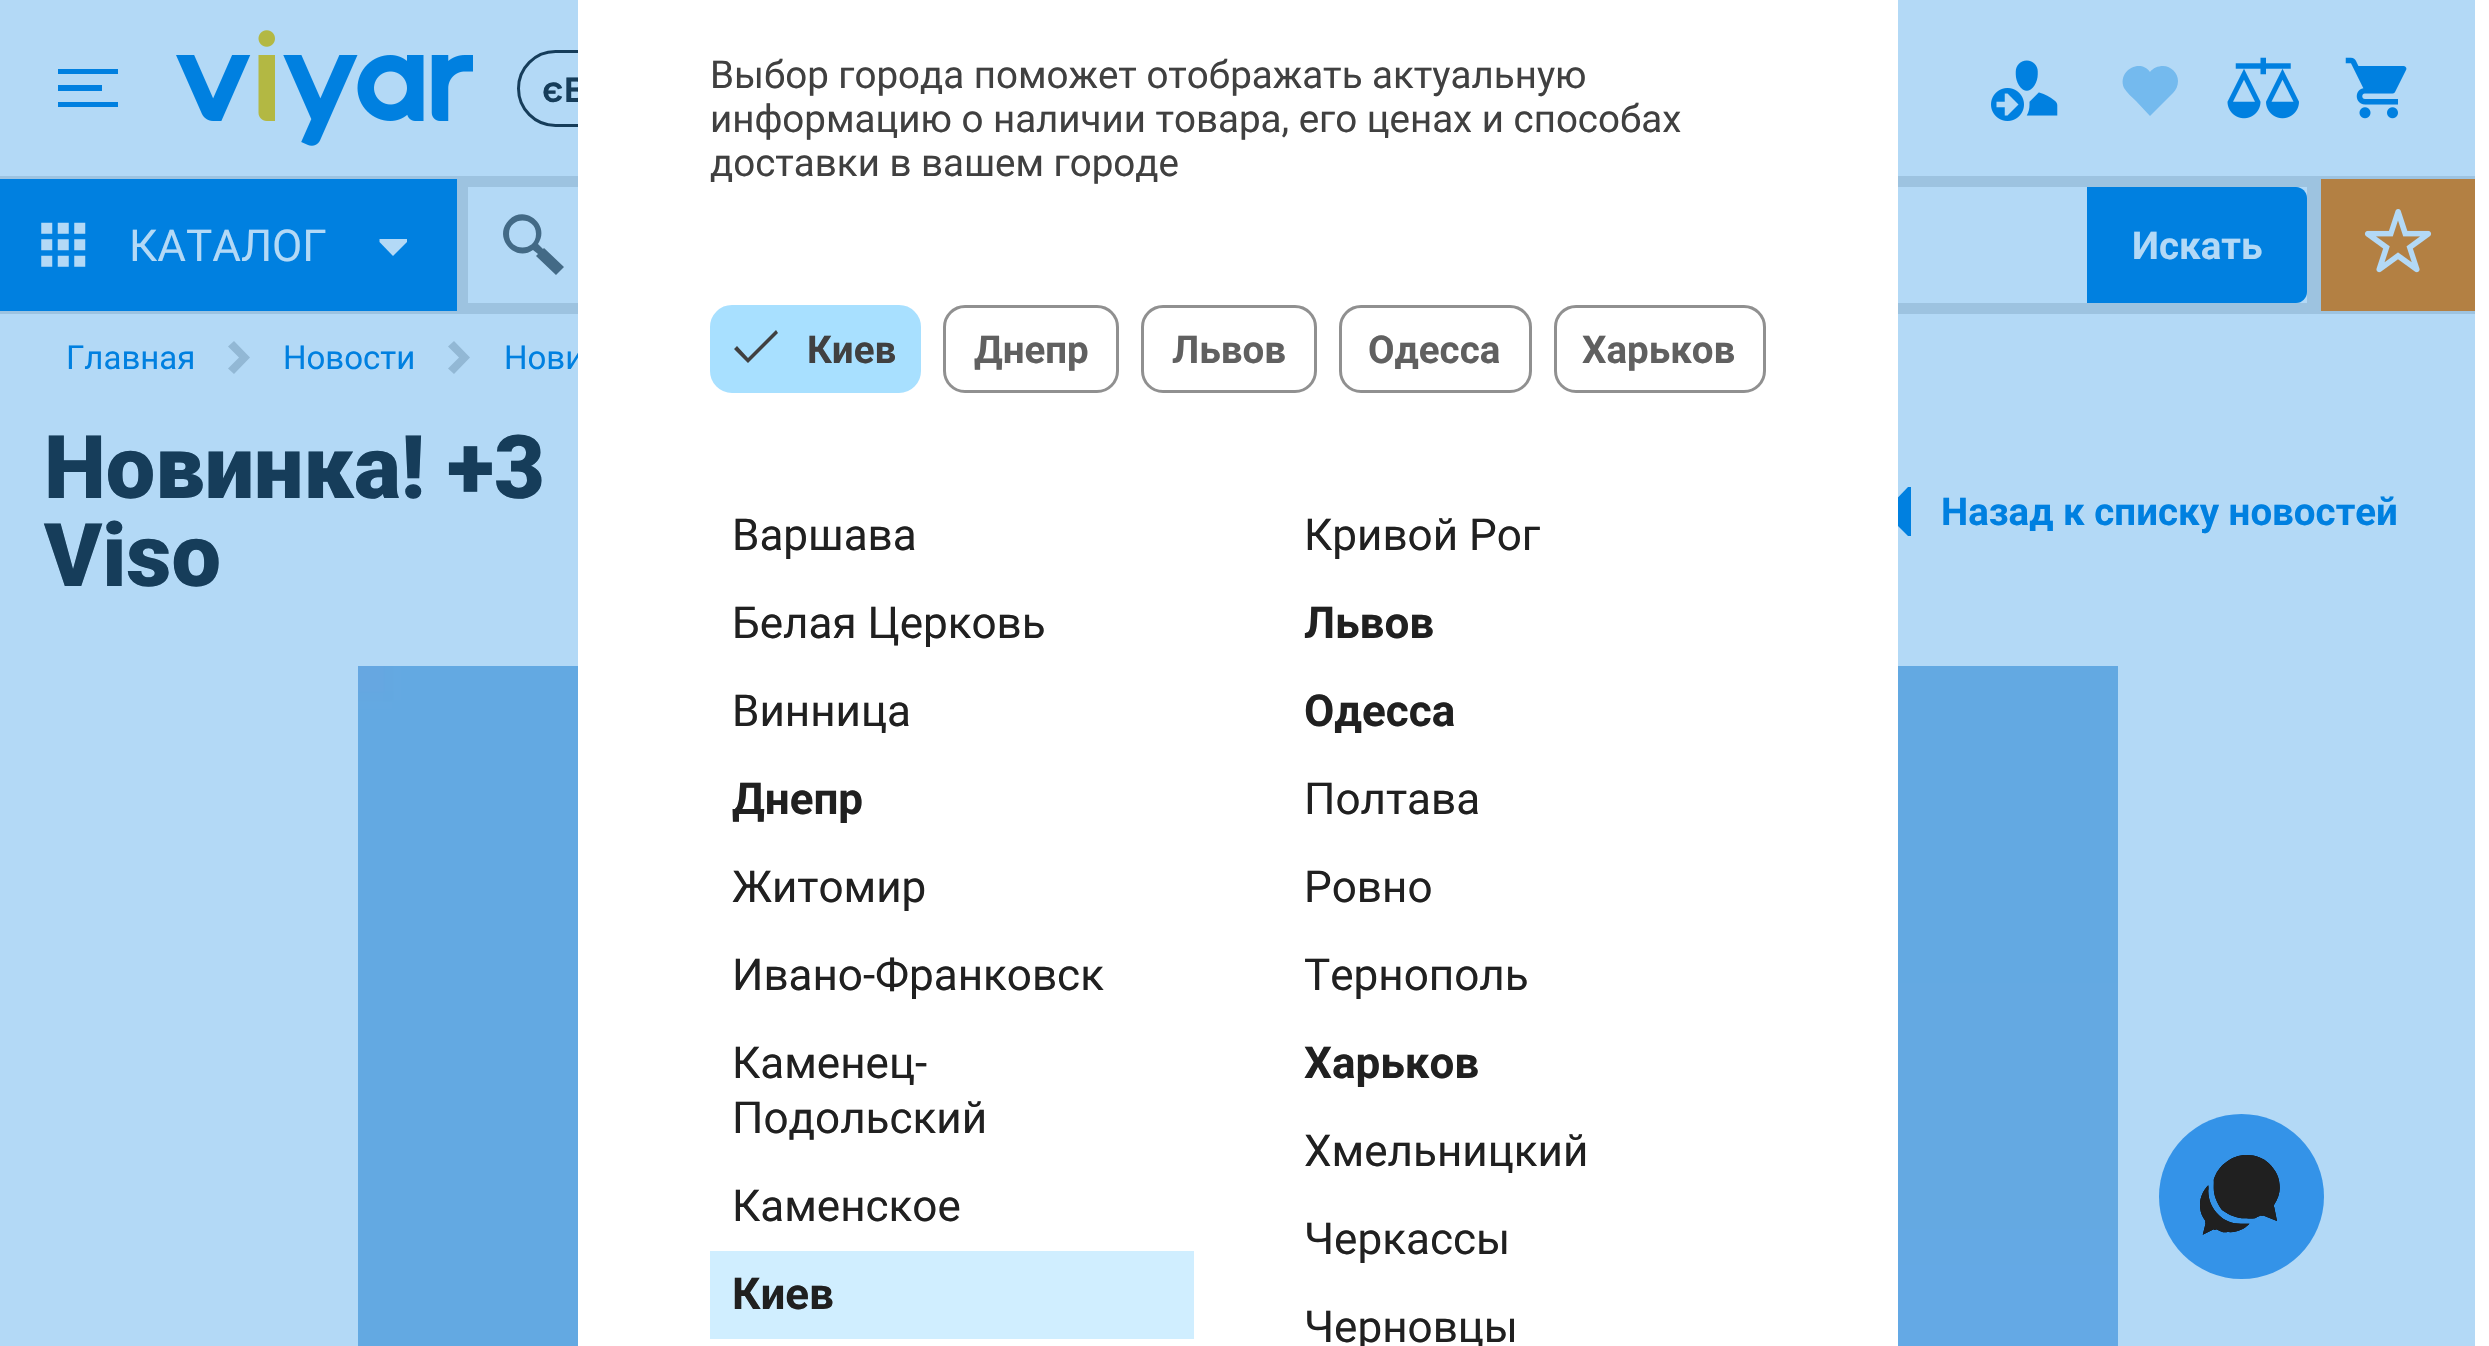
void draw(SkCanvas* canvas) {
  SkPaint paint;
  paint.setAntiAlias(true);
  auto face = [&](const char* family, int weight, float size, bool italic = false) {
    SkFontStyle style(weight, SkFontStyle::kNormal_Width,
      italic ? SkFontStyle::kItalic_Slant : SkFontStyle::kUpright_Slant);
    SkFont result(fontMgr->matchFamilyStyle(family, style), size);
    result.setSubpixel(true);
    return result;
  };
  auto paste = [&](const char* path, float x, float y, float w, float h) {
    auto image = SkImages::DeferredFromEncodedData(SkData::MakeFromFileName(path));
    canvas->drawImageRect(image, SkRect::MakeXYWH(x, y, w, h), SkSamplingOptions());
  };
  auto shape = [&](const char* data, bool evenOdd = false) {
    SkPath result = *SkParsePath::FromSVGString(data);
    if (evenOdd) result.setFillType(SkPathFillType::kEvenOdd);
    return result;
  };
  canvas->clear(0xffffffff);
  paint.setColor(0xffb3d9f6);
  canvas->drawRect(SkRect::MakeXYWH(0, 0, 2475, 1346), paint);
  paint.setColor(0xff0080e0);
  canvas->drawPath(shape("M118 74H58V69H118ZM102 85H58V91H102ZM118 102H58V107H118Z"), paint);
  paste("img/1.png", 176, 30, 297, 116);
  paint.setStroke(true);
  paint.setStrokeWidth(3);
  paint.setColor(0xff163d5a);
  canvas->drawRoundRect(SkRect::MakeXYWH(518.5f, 51.5f, 305, 74), 37, 37, paint);
  paste("img/2.png", 1991, 60, 67, 61);
  paint.setStroke(false);
  paint.setColor(0xff74baee);
  canvas->drawPath(shape("M2163 66C2158 66 2153 68 2150 72C2140 58 2117 71 2124 88C2127 93 2132 97 2136 101L2150 116L2173 93C2176 90 2178 86 2178 81C2178 73 2171 66 2163 66Z"), paint);
  paste("img/3.png", 2227, 57, 72, 62);
  paste("img/4.png", 2345, 57, 62, 62);
  {
    const struct { float x, y, w, h; SkColor color; } items[] = {
      {0, 176, 2475, 3, 0xff9dc3e0},
      {0, 311, 2475, 3, 0xff9dc3e0},
      {0, 179, 457, 132, 0xff0080e0},
    };
    for (auto [x, y, w, h, color] : items) {
      paint.setColor(color);
      canvas->drawRect(SkRect::MakeXYWH(x, y, w, h), paint);
    }
  }
  paste("img/5.png", 41, 222, 45, 45);
  paint.setColor(0xffb3d9f6);
  canvas->drawPath(shape("M407 239H379.5V242L393 256L407 242Z", true), paint);
  {
    const struct { float x, y, w, h; SkColor color; } items[] = {
      {468, 179, 1839, 8, 0xff9dc3e0},
      {2307, 179, 11, 124, 0xff9dc3e0},
      {468, 303, 1850, 8, 0xff9dc3e0},
      {457, 179, 11, 132, 0xff9dc3e0},
    };
    for (auto [x, y, w, h, color] : items) {
      paint.setColor(color);
      canvas->drawRect(SkRect::MakeXYWH(x, y, w, h), paint);
    }
  }
  paint.setColor(0xff436a86);
  canvas->drawPath(shape("M544 248L543 249L538 244C551 225 525 204 509 220C492 237 515 263 533 250L538 254L536 256L556 275L564 267ZM509 234C509 216 536 216 536 234C536 252 509 252 509 234Z"), paint);
  paint.setColor(0xff0080e0);
  canvas->drawPath(shape("M2087 187H2296C2302 187 2307 192 2307 198V292C2307 298 2302 303 2296 303H2087Z"), paint);
  paint.setColor(0xffb38043);
  canvas->drawRect(SkRect::MakeXYWH(2321, 179, 154, 132), paint);
  paint.setColor(0xff9dc3e0);
  canvas->drawRect(SkRect::MakeXYWH(2318, 179, 3, 132), paint);
  paste("img/6.png", 2364, 209, 68, 64);
  paint.setColor(0xff92b8d5);
  canvas->drawPath(shape("M234 341L228 346.5L239 357.5L228 368.5L234 374L250 357.5Z"), paint);
  canvas->drawPath(shape("M454 341L448 346.5L459 357.5L448 368.5L454 374L470 357.5Z"), paint);
  paint.setColor(0xff0080e0);
  canvas->drawPath(shape("M1908 487L1884 512L1908 536H1911V487Z"), paint);
  paste("img/7.png", 358, 666, 1760, 680);
  paint.setColor(0xff3493e8);
  canvas->drawCircle(2241.5f, 1196.5f, 82.5f, paint);
  paste("img/8.png", 2200, 1155, 80, 80);
  auto f0 = face("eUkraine", 500, 33);
  paint.setColor(0xff163d5a);
  canvas->drawString("єВ", 542, 102, f0, paint);
  auto f1 = face("Roboto", 400, 44);
  paint.setColor(0xffb3d9f6);
  canvas->drawString("КАТАЛОГ", 129, 261, f1, paint);
  auto f2 = face("Roboto", 700, 38.5f);
  canvas->drawString("Искать", 2132, 259, f2, paint);
  auto f3 = face("Roboto", 400, 33);
  paint.setColor(0xff0080e0);
  {
    const struct { const char* s; float x, y; } items[] = {
      {"Главная", 66, 369},
      {"Новости", 283, 369},
      {"Нови", 504, 369},
    };
    for (auto [s, x, y] : items) {
      canvas->drawString(s, x, y, f3, paint);
    }
  }
  paint.setColor(0xffffffff);
  canvas->drawRect(SkRect::MakeXYWH(578, 0, 1320, 1346), paint);
  paint.setColor(0xffa8e0ff);
  canvas->drawRoundRect(SkRect::MakeXYWH(711.5f, 306.5f, 208, 85), 20.5f, 20.5f, paint);
  paint.setStroke(true);
  canvas->drawRoundRect(SkRect::MakeXYWH(711.5f, 306.5f, 208, 85), 20.5f, 20.5f, paint);
  paint.setStroke(false);
  paint.setColor(0xff404040);
  canvas->drawPath(shape("M776 330L748 358L737 346L734 349L748 363L778 333Z"), paint);
  canvas->drawString("Киев", 807, 363, f2, paint);
  paint.setColor(0xff202020);
  {
    const struct { const char* s; float x, y; } items[] = {
      {"Черновцы", 1304, 1342},
      {"Черкассы", 1304, 1254},
      {"Хмельницкий", 1304, 1166},
    };
    for (auto [s, x, y] : items) {
      canvas->drawString(s, x, y, f1, paint);
    }
  }
  auto f4 = face("Roboto", 700, 44);
  canvas->drawString("Харьков", 1304, 1078, f4, paint);
  {
    const struct { const char* s; float x, y; } items[] = {
      {"Тернополь", 1304, 990},
      {"Ровно", 1304, 902},
      {"Полтава", 1304, 814},
    };
    for (auto [s, x, y] : items) {
      canvas->drawString(s, x, y, f1, paint);
    }
  }
  canvas->drawString("Одесса", 1304, 726, f4, paint);
  canvas->drawString("Львов", 1304, 638, f4, paint);
  canvas->drawString("Кривой Рог", 1304, 550, f1, paint);
  paint.setColor(0xffd0eeff);
  canvas->drawRect(SkRect::MakeXYWH(710, 1251, 484, 88), paint);
  paint.setColor(0xff202020);
  canvas->drawString("Киев", 732, 1309, f4, paint);
  {
    const struct { const char* s; float x, y; } items[] = {
      {"Каменское", 732, 1221},
      {"Подольский", 732, 1133},
      {"Каменец-", 732, 1078},
      {"Ивано-Франковск", 732, 990},
      {"Житомир", 732, 902},
    };
    for (auto [s, x, y] : items) {
      canvas->drawString(s, x, y, f1, paint);
    }
  }
  canvas->drawString("Днепр", 732, 814, f4, paint);
  {
    const struct { const char* s; float x, y; } items[] = {
      {"Винница", 732, 726},
      {"Белая Церковь", 732, 638},
      {"Варшава", 732, 550},
    };
    for (auto [s, x, y] : items) {
      canvas->drawString(s, x, y, f1, paint);
    }
  }
  paint.setStroke(true);
  paint.setColor(0xff909090);
  canvas->drawRoundRect(SkRect::MakeXYWH(1555.5f, 306.5f, 209, 85), 20.5f, 20.5f, paint);
  paint.setStroke(false);
  paint.setColor(0xff606060);
  canvas->drawString("Харьков", 1582, 363, f2, paint);
  paint.setStroke(true);
  paint.setColor(0xff909090);
  canvas->drawRoundRect(SkRect::MakeXYWH(1340.5f, 306.5f, 190, 85), 20.5f, 20.5f, paint);
  paint.setStroke(false);
  paint.setColor(0xff606060);
  canvas->drawString("Одесса", 1368, 363, f2, paint);
  paint.setStroke(true);
  paint.setColor(0xff909090);
  canvas->drawRoundRect(SkRect::MakeXYWH(1142.5f, 306.5f, 173, 85), 20.5f, 20.5f, paint);
  paint.setStroke(false);
  paint.setColor(0xff606060);
  canvas->drawString("Львов", 1172, 363, f2, paint);
  paint.setStroke(true);
  paint.setColor(0xff909090);
  canvas->drawRoundRect(SkRect::MakeXYWH(944.5f, 306.5f, 173, 85), 20.5f, 20.5f, paint);
  paint.setStroke(false);
  paint.setColor(0xff606060);
  canvas->drawString("Днепр", 974, 363, f2, paint);
  auto f5 = face("Roboto", 400, 38.5f);
  paint.setColor(0xff404040);
  {
    const struct { const char* s; float x, y; } items[] = {
      {"доставки в вашем городе", 710, 176},
      {"информацию о наличии товара, его ценах и способах", 710, 132},
      {"Выбор города поможет отображать актуальную", 710, 88},
    };
    for (auto [s, x, y] : items) {
      canvas->drawString(s, x, y, f5, paint);
    }
  }
  auto f6 = face("Roboto", 900, 88);
  paint.setColor(0xff163d5a);
  canvas->drawString("Новинка! +3", 44, 498, f6, paint);
  canvas->drawString("Viso", 44, 586, f6, paint);
  paint.setColor(0xff0080e0);
  canvas->drawString("Назад к списку новостей", 1941, 525, f2, paint);
}
